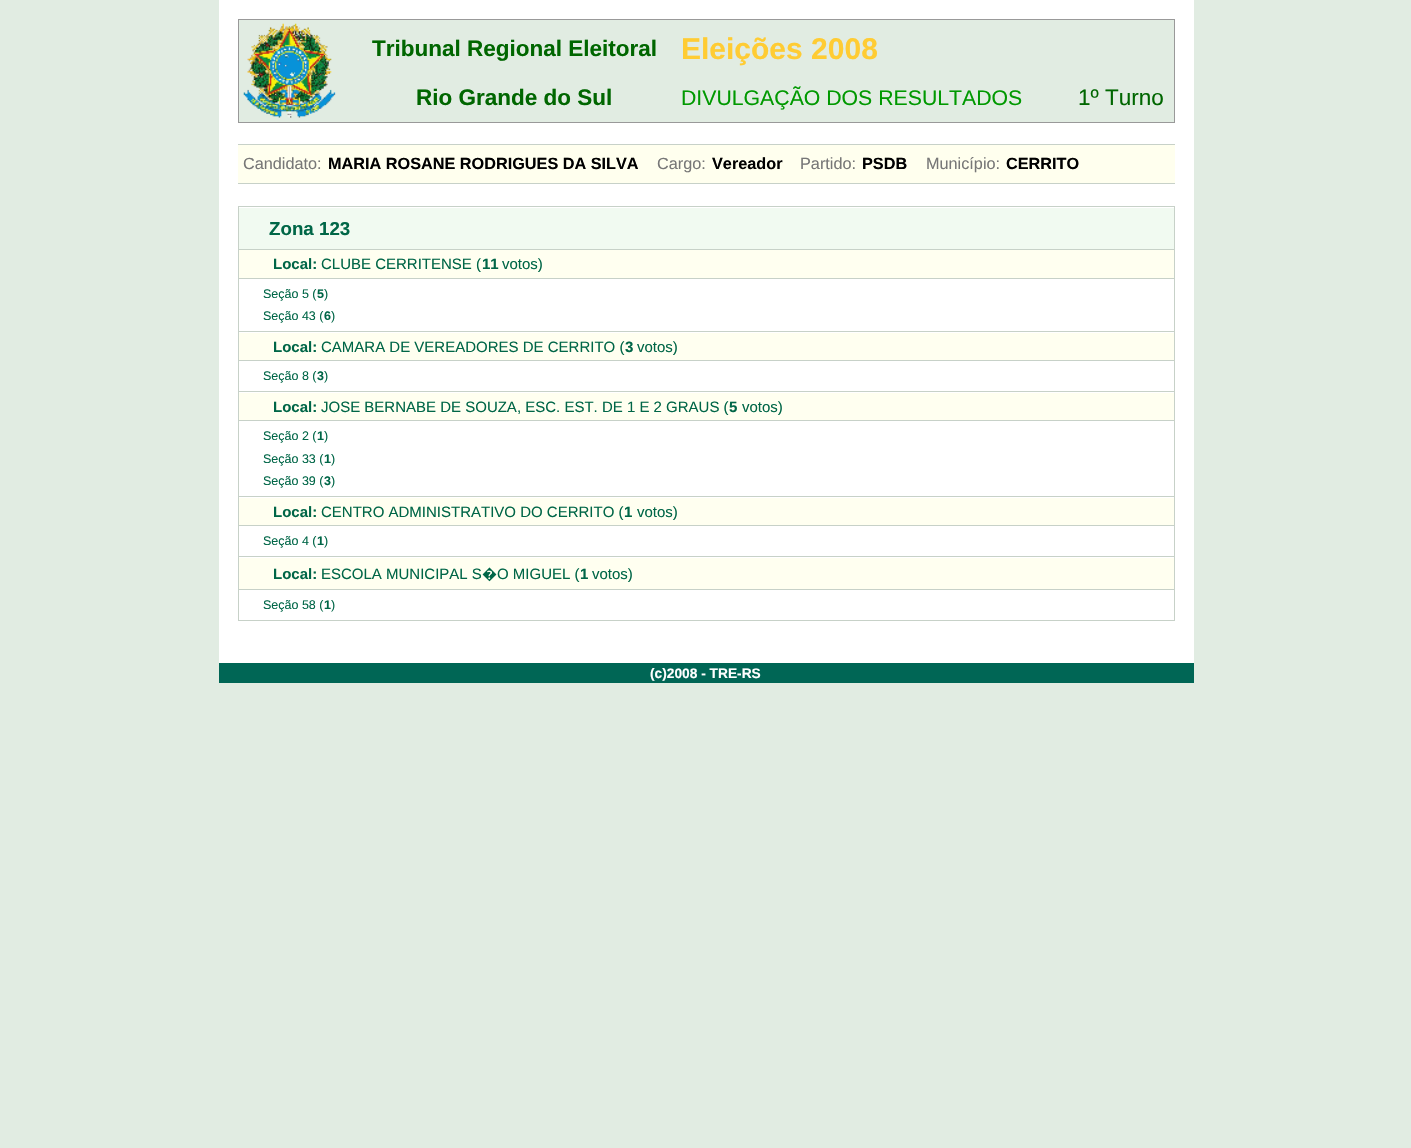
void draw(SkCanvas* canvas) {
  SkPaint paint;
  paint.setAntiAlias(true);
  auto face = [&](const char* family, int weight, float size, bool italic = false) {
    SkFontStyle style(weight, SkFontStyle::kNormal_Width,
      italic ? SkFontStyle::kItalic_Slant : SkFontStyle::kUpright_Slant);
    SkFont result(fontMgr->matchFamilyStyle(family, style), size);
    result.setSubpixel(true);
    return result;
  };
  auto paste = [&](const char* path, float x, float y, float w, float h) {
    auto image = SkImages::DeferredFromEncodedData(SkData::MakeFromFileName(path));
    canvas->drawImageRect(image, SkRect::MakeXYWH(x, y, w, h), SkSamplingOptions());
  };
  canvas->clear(0xffe1ece2);
  paint.setColor(0xffffffff);
  canvas->drawRect(SkRect::MakeXYWH(219, 0, 975, 663), paint);
  paint.setColor(0xffe1ece2);
  canvas->drawRect(SkRect::MakeXYWH(238.5f, 19.5f, 936, 103), paint);
  paint.setStroke(true);
  paint.setStrokeWidth(1);
  paint.setColor(0xff999999);
  canvas->drawRect(SkRect::MakeXYWH(238.5f, 19.5f, 936, 103), paint);
  paste("img/1.png", 243, 23, 93, 95);
  paint.setStroke(false);
  {
    const struct { float x, y, w, h; SkColor color; } items[] = {
      {238, 145, 937, 38, 0xffffffee},
      {238, 144, 937, 1, 0xffc7d1c8},
      {238, 183, 937, 1, 0xffc7d1c8},
      {238, 206, 937, 1, 0xffc7d1c8},
      {1174, 206, 1, 415, 0xffc7d1c8},
      {238, 206, 1, 415, 0xffc7d1c8},
      {239, 208, 935, 41, 0xfff1faf1},
      {239, 249, 935, 1, 0xffc7d1c8},
      {239, 250, 935, 28, 0xfffffff0},
      {239, 278, 935, 1, 0xffc7d1c8},
      {239, 331, 935, 1, 0xffc7d1c8},
      {239, 333, 935, 27, 0xfffffff0},
      {239, 360, 935, 1, 0xffc7d1c8},
      {239, 391, 935, 1, 0xffc7d1c8},
      {239, 393, 935, 27, 0xfffffff0},
      {239, 420, 935, 1, 0xffc7d1c8},
      {239, 496, 935, 1, 0xffc7d1c8},
      {239, 498, 935, 27, 0xfffffff0},
      {239, 525, 935, 1, 0xffc7d1c8},
      {239, 556, 935, 1, 0xffc7d1c8},
      {239, 558, 935, 31, 0xfffffff0},
      {239, 589, 935, 1, 0xffc7d1c8},
      {239, 620, 935, 1, 0xffc7d1c8},
      {219, 663, 975, 20, 0xff006655},
    };
    for (auto [x, y, w, h, color] : items) {
      paint.setColor(color);
      canvas->drawRect(SkRect::MakeXYWH(x, y, w, h), paint);
    }
  }
  auto f0 = face("Liberation Sans", 700, 22.5f);
  paint.setColor(0xff006600);
  canvas->drawString("Tribunal Regional Eleitoral", 372, 56, f0, paint);
  auto f1 = face("Liberation Sans", 700, 30);
  paint.setColor(0xffffcc33);
  canvas->drawString("Eleições 2008", 681, 59, f1, paint);
  paint.setColor(0xff006600);
  canvas->drawString("Rio Grande do Sul", 416, 105, f0, paint);
  auto f2 = face("Liberation Sans", 400, 21.25f);
  paint.setColor(0xff009900);
  canvas->drawString("DIVULGAÇÃO DOS RESULTADOS", 681, 105, f2, paint);
  auto f3 = face("Liberation Sans", 400, 22.5f);
  paint.setColor(0xff006600);
  canvas->drawString("1º Turno", 1078, 105, f3, paint);
  auto f4 = face("Liberation Sans", 400, 16.25f);
  paint.setColor(0xff777777);
  canvas->drawString("Candidato:", 243, 169, f4, paint);
  auto f5 = face("Liberation Sans", 700, 16.25f);
  paint.setColor(0xff000000);
  canvas->drawString("MARIA ROSANE RODRIGUES DA SILVA", 328, 169, f5, paint);
  paint.setColor(0xff777777);
  canvas->drawString("Cargo:", 657, 169, f4, paint);
  paint.setColor(0xff000000);
  canvas->drawString("Vereador", 712, 169, f5, paint);
  paint.setColor(0xff777777);
  canvas->drawString("Partido:", 800, 169, f4, paint);
  paint.setColor(0xff000000);
  canvas->drawString("PSDB", 862, 169, f5, paint);
  paint.setColor(0xff777777);
  canvas->drawString("Município:", 926, 169, f4, paint);
  paint.setColor(0xff000000);
  canvas->drawString("CERRITO", 1006, 169, f5, paint);
  auto f6 = face("Liberation Sans", 700, 18.75f);
  paint.setColor(0xff006647);
  canvas->drawString("Zona 123", 269, 235, f6, paint);
  auto f7 = face("Liberation Sans", 700, 15);
  canvas->drawString("Local:", 273, 269, f7, paint);
  auto f8 = face("Liberation Sans", 400, 15);
  canvas->drawString("CLUBE CERRITENSE (", 321, 269, f8, paint);
  canvas->drawString("11", 482, 269, f7, paint);
  canvas->drawString("votos)", 502, 269, f8, paint);
  auto f9 = face("Liberation Sans", 400, 12.5f);
  canvas->drawString("Seção 5 (", 263, 298, f9, paint);
  auto f10 = face("Liberation Sans", 700, 12.5f);
  canvas->drawString("5", 317, 298, f10, paint);
  canvas->drawString(")", 324, 298, f9, paint);
  canvas->drawString("Seção 43 (", 263, 320, f9, paint);
  canvas->drawString("6", 324, 320, f10, paint);
  canvas->drawString(")", 331, 320, f9, paint);
  canvas->drawString("Local:", 273, 352, f7, paint);
  canvas->drawString("CAMARA DE VEREADORES DE CERRITO (", 321, 352, f8, paint);
  canvas->drawString("3", 625, 352, f7, paint);
  canvas->drawString("votos)", 637, 352, f8, paint);
  canvas->drawString("Seção 8 (", 263, 380, f9, paint);
  canvas->drawString("3", 317, 380, f10, paint);
  canvas->drawString(")", 324, 380, f9, paint);
  canvas->drawString("Local:", 273, 412, f7, paint);
  canvas->drawString("JOSE BERNABE DE SOUZA, ESC. EST. DE 1 E 2 GRAUS (", 321, 412, f8, paint);
  canvas->drawString("5", 729, 412, f7, paint);
  canvas->drawString("votos)", 742, 412, f8, paint);
  canvas->drawString("Seção 2 (", 263, 440, f9, paint);
  canvas->drawString("1", 317, 440, f10, paint);
  canvas->drawString(")", 324, 440, f9, paint);
  canvas->drawString("Seção 33 (", 263, 463, f9, paint);
  canvas->drawString("1", 324, 463, f10, paint);
  canvas->drawString(")", 331, 463, f9, paint);
  canvas->drawString("Seção 39 (", 263, 485, f9, paint);
  canvas->drawString("3", 324, 485, f10, paint);
  canvas->drawString(")", 331, 485, f9, paint);
  canvas->drawString("Local:", 273, 517, f7, paint);
  canvas->drawString("CENTRO ADMINISTRATIVO DO CERRITO (", 321, 517, f8, paint);
  canvas->drawString("1", 624, 517, f7, paint);
  canvas->drawString("votos)", 637, 517, f8, paint);
  canvas->drawString("Seção 4 (", 263, 545, f9, paint);
  canvas->drawString("1", 317, 545, f10, paint);
  canvas->drawString(")", 324, 545, f9, paint);
  canvas->drawString("Local:", 273, 579, f7, paint);
  canvas->drawString("ESCOLA MUNICIPAL S", 321, 579, f8, paint);
  auto f11 = face("Noto Sans", 400, 15);
  canvas->drawString("�", 482, 579, f11, paint);
  canvas->drawString("O MIGUEL (", 497, 579, f8, paint);
  canvas->drawString("1", 580, 579, f7, paint);
  canvas->drawString("votos)", 592, 579, f8, paint);
  canvas->drawString("Seção 58 (", 263, 609, f9, paint);
  canvas->drawString("1", 324, 609, f10, paint);
  canvas->drawString(")", 331, 609, f9, paint);
  auto f12 = face("Liberation Sans", 700, 13.75f);
  paint.setColor(0xffffffff);
  canvas->drawString("(c)2008 - TRE-RS", 650, 678, f12, paint);
}
